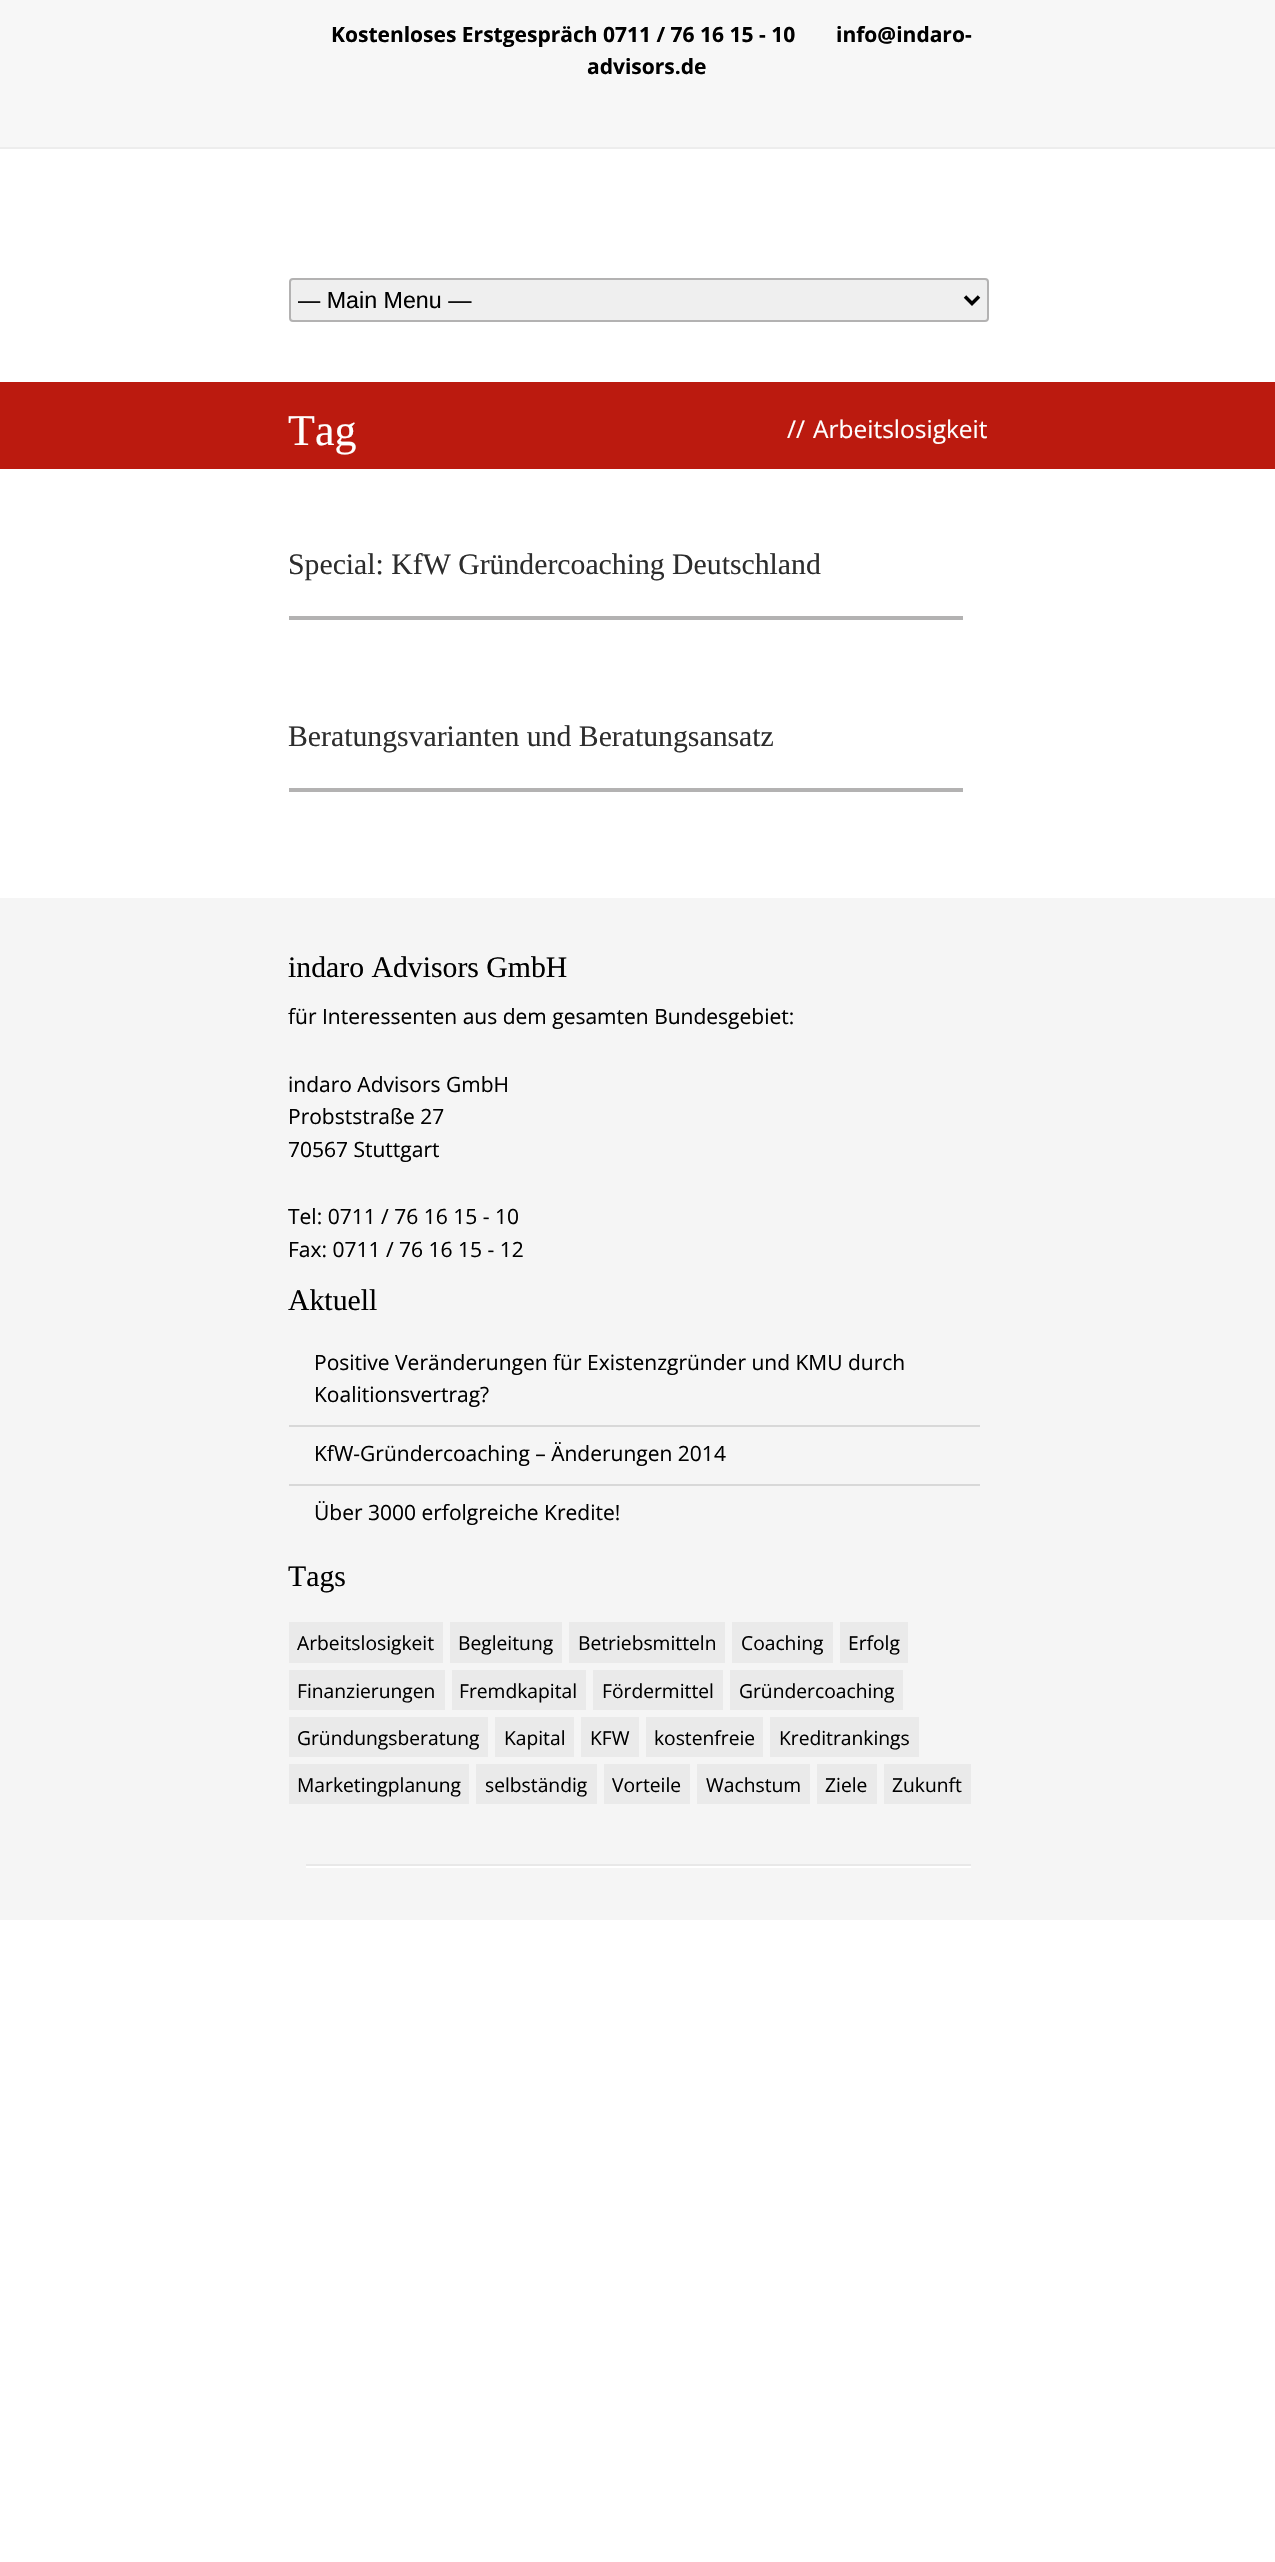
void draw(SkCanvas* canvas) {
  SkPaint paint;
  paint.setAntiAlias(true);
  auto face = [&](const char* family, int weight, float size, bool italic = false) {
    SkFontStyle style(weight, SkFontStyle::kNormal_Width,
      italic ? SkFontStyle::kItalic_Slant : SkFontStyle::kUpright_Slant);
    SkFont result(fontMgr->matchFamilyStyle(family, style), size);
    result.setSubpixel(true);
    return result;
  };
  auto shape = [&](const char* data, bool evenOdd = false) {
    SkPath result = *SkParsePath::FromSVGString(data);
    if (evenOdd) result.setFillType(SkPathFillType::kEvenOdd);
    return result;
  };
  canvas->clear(0xffffffff);
  paint.setColor(0xfff7f7f7);
  canvas->drawRect(SkRect::MakeXYWH(0, 0, 1275, 147), paint);
  paint.setColor(0xffededed);
  canvas->drawRect(SkRect::MakeXYWH(0, 147, 1275, 2), paint);
  paint.setColor(0xffefefef);
  canvas->drawRoundRect(SkRect::MakeXYWH(290, 279, 698, 42), 3, 3, paint);
  paint.setStroke(true);
  paint.setStrokeWidth(2);
  paint.setColor(0xffb3b2b2);
  canvas->drawRoundRect(SkRect::MakeXYWH(290, 279, 698, 42), 3, 3, paint);
  paint.setStrokeWidth(3.5f);
  paint.setColor(0xff000000);
  canvas->drawPath(shape("M965 296.5L972 303.5L979 296.5"), paint);
  paint.setStroke(false);
  {
    const struct { float x, y, w, h; SkColor color; } items[] = {
      {0, 382, 1275, 87, 0xffbb1a0f},
      {289, 616, 674, 4, 0xffb3b2b2},
      {289, 788, 674, 4, 0xffb3b2b2},
      {0, 898, 1275, 1022, 0xfff5f5f5},
      {289, 1425, 691, 2, 0xffd8d8d8},
      {289, 1484, 691, 2, 0xffd8d8d8},
      {289, 1622, 154, 41, 0xffeaeaea},
      {450, 1622, 112, 41, 0xffeaeaea},
      {569, 1622, 156, 41, 0xffeaeaea},
      {732, 1622, 101, 41, 0xffeaeaea},
      {840, 1622, 68, 41, 0xffeaeaea},
      {289, 1670, 156, 40, 0xffeaeaea},
      {452, 1670, 134, 40, 0xffeaeaea},
      {593, 1670, 130, 40, 0xffeaeaea},
      {730, 1670, 173, 40, 0xffeaeaea},
      {289, 1717, 199, 40, 0xffeaeaea},
      {495, 1717, 79, 40, 0xffeaeaea},
      {581, 1717, 58, 40, 0xffeaeaea},
      {646, 1717, 117, 40, 0xffeaeaea},
      {770, 1717, 149, 40, 0xffeaeaea},
      {289, 1764, 180, 40, 0xffeaeaea},
      {476, 1764, 121, 40, 0xffeaeaea},
      {604, 1764, 86, 40, 0xffeaeaea},
      {697, 1764, 113, 40, 0xffeaeaea},
      {817, 1764, 60, 40, 0xffeaeaea},
      {884, 1764, 87, 40, 0xffeaeaea},
      {306, 1864, 665, 2, 0xffe8e8e8},
      {306, 1866, 665, 2, 0xffffffff},
    };
    for (auto [x, y, w, h, color] : items) {
      paint.setColor(color);
      canvas->drawRect(SkRect::MakeXYWH(x, y, w, h), paint);
    }
  }
  auto f0 = face("Open Sans", 700, 21);
  paint.setColor(0xff000000);
  {
    const struct { const char* s; float x, y; } items[] = {
      {"Kostenloses Erstgespräch 0711 / 76 16 15 - 10", 331, 42},
      {"info@indaro-", 836, 42},
      {"advisors.de", 587, 74},
    };
    for (auto [s, x, y] : items) {
      canvas->drawString(s, x, y, f0, paint);
    }
  }
  canvas->save();
  canvas->clipRect(SkRect::MakeXYWH(298, 285, 661, 30));
  auto f1 = face("Liberation Sans", 400, 23.25f);
  canvas->drawString("— Main Menu —", 297, 308, f1, paint);
  canvas->restore();
  auto f2 = face("Tinos", 400, 44);
  paint.setColor(0xffffffff);
  canvas->drawString("Tag", 288, 445, f2, paint);
  auto f3 = face("Open Sans", 400, 24.5f);
  canvas->drawString("//", 787, 438, f3, paint);
  canvas->drawString("Arbeitslosigkeit", 813, 438, f3, paint);
  auto f4 = face("Tinos", 400, 29.75f);
  paint.setColor(0xff2d2d2d);
  canvas->drawString("Special: KfW Gründercoaching Deutschland", 288, 574, f4, paint);
  canvas->drawString("Beratungsvarianten und Beratungsansatz", 288, 746, f4, paint);
  paint.setColor(0xff000000);
  canvas->drawString("indaro Advisors GmbH", 288, 977, f4, paint);
  auto f5 = face("Open Sans", 400, 21);
  {
    const struct { const char* s; float x, y; } items[] = {
      {"für Interessenten aus dem gesamten Bundesgebiet:", 288, 1024},
      {"indaro Advisors GmbH", 288, 1092},
      {"Probststraße 27", 288, 1124},
      {"70567 Stuttgart", 288, 1157},
      {"Tel: 0711 / 76 16 15 - 10", 288, 1224},
      {"Fax: 0711 / 76 16 15 - 12", 288, 1257},
    };
    for (auto [s, x, y] : items) {
      canvas->drawString(s, x, y, f5, paint);
    }
  }
  canvas->drawString("Aktuell", 288, 1310, f4, paint);
  {
    const struct { const char* s; float x, y; } items[] = {
      {"Positive Veränderungen für Existenzgründer und KMU durch", 314, 1370},
      {"Koalitionsvertrag?", 314, 1402},
      {"KfW-Gründercoaching – Änderungen 2014", 314, 1461},
      {"Über 3000 erfolgreiche Kredite!", 314, 1520},
    };
    for (auto [s, x, y] : items) {
      canvas->drawString(s, x, y, f5, paint);
    }
  }
  canvas->drawString("Tags", 288, 1586, f4, paint);
  auto f6 = face("Open Sans", 400, 19.25f);
  {
    const struct { const char* s; float x, y; } items[] = {
      {"Arbeitslosigkeit", 297, 1650},
      {"Begleitung", 458, 1650},
      {"Betriebsmitteln", 578, 1650},
      {"Coaching", 741, 1650},
      {"Erfolg", 848, 1650},
      {"Finanzierungen", 297, 1698},
      {"Fremdkapital", 459, 1698},
      {"Fördermittel", 602, 1698},
      {"Gründercoaching", 739, 1698},
      {"Gründungsberatung", 297, 1745},
      {"Kapital", 504, 1745},
      {"KFW", 590, 1745},
      {"kostenfreie", 654, 1745},
      {"Kreditrankings", 779, 1745},
      {"Marketingplanung", 297, 1792},
      {"selbständig", 485, 1792},
      {"Vorteile", 612, 1792},
      {"Wachstum", 706, 1792},
      {"Ziele", 825, 1792},
      {"Zukunft", 892, 1792},
    };
    for (auto [s, x, y] : items) {
      canvas->drawString(s, x, y, f6, paint);
    }
  }
}
